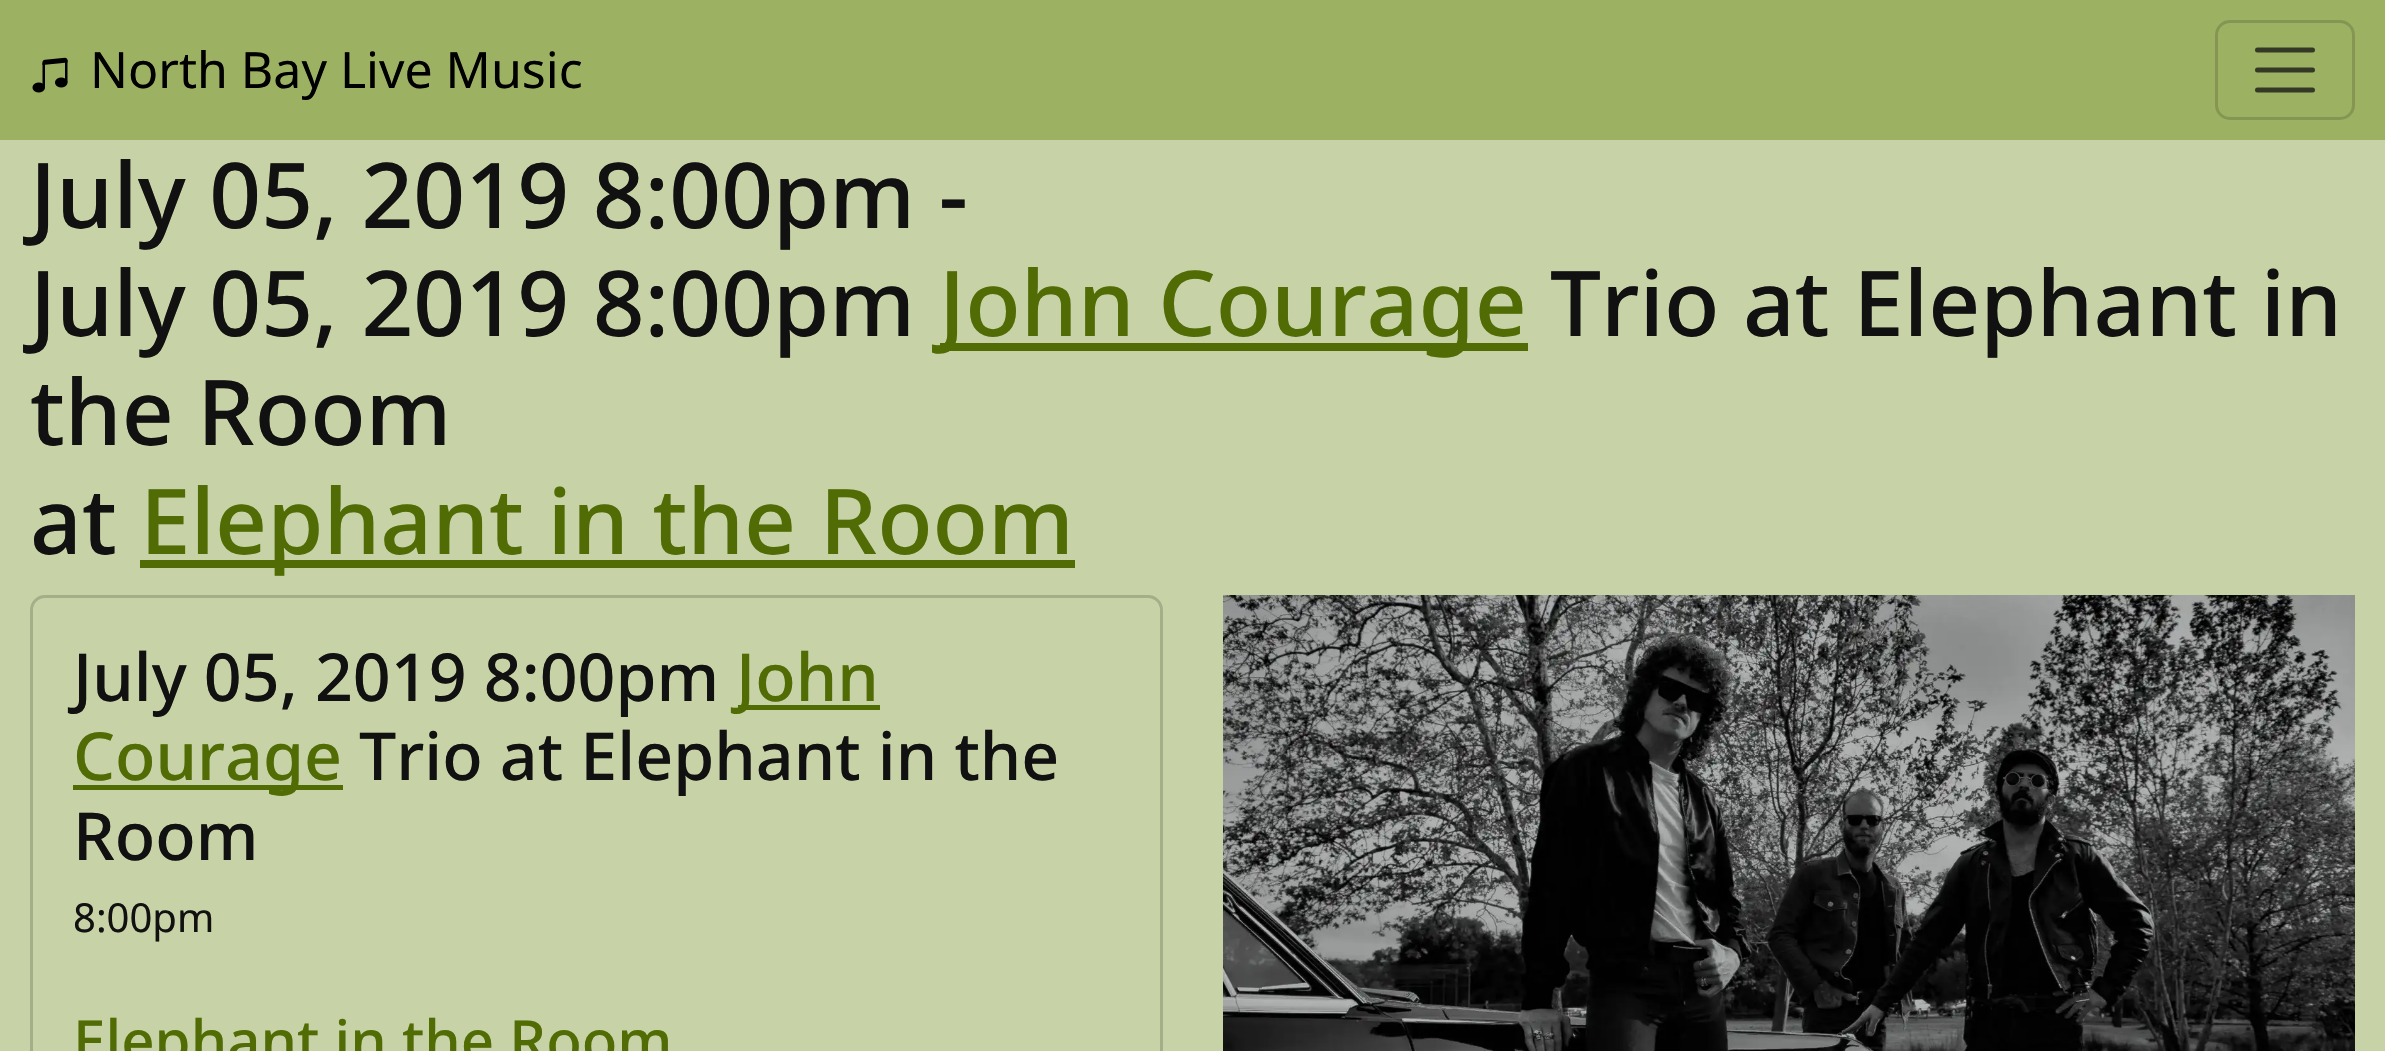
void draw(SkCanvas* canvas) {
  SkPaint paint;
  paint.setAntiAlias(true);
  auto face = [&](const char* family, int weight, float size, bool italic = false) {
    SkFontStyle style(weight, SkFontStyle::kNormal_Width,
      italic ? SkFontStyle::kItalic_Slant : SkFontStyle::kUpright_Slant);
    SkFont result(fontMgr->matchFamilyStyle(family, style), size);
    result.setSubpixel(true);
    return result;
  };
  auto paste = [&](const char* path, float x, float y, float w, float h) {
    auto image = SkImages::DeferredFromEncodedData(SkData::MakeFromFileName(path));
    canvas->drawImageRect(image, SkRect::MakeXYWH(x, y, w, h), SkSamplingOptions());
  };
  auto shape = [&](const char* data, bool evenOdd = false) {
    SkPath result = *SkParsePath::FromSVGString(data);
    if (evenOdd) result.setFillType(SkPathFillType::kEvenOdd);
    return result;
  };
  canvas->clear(0xffc7d3a6);
  paint.setColor(0xff9cb162);
  canvas->drawRect(SkRect::MakeXYWH(0, 0, 2385, 140), paint);
  paste("img/1.png", 32, 57, 36, 36);
  paint.setStroke(true);
  paint.setStrokeWidth(3);
  paint.setColor(0xff859653);
  canvas->drawRoundRect(SkRect::MakeXYWH(2216.5f, 21.5f, 137, 97), 13.5f, 13.5f, paint);
  paint.setStrokeWidth(5);
  paint.setStrokeCap(SkPaint::kRound_Cap);
  paint.setColor(0xff343925);
  canvas->drawPath(shape("M2257.5 50H2312.5M2257.5 70H2312.5M2257.5 90H2312.5"), paint);
  paint.setStroke(false);
  paint.setColor(0xff516c05);
  canvas->drawRect(SkRect::MakeXYWH(940, 343, 588, 8), paint);
  canvas->drawRect(SkRect::MakeXYWH(140, 560, 935, 8), paint);
  paint.setStroke(true);
  paint.setStrokeWidth(3);
  paint.setStrokeCap(SkPaint::kButt_Cap);
  paint.setColor(0xffa4ae89);
  canvas->drawRoundRect(SkRect::MakeXYWH(31.5f, 596.5f, 1130, 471), 13.5f, 13.5f, paint);
  paint.setStroke(false);
  paint.setColor(0xff516c05);
  canvas->drawRect(SkRect::MakeXYWH(738, 705, 142, 5), paint);
  canvas->drawRect(SkRect::MakeXYWH(73, 785, 270, 5), paint);
  paste("img/2.png", 1223, 595, 1132, 456);
  auto f0 = face("Noto Sans", 400, 50);
  paint.setColor(0xff000000);
  canvas->drawString("North Bay Live Music", 90, 88, f0, paint);
  auto f1 = face("Noto Sans", 500, 90.75f);
  paint.setColor(0xff111111);
  canvas->drawString("July 05, 2019 8:00pm -", 30, 228, f1, paint);
  canvas->drawString("July 05, 2019 8:00pm", 30, 336, f1, paint);
  paint.setColor(0xff516c05);
  canvas->drawString("John Courage", 939, 336, f1, paint);
  paint.setColor(0xff111111);
  {
    const struct { const char* s; float x, y; } items[] = {
      {"Trio at Elephant in", 1550, 336},
      {"the Room", 30, 445},
      {"at", 30, 554},
    };
    for (auto [s, x, y] : items) {
      canvas->drawString(s, x, y, f1, paint);
    }
  }
  paint.setColor(0xff516c05);
  canvas->drawString("Elephant in the Room", 140, 554, f1, paint);
  auto f2 = face("Noto Sans", 500, 66.25f);
  paint.setColor(0xff111111);
  canvas->drawString("July 05, 2019 8:00pm", 73, 701, f2, paint);
  paint.setColor(0xff516c05);
  canvas->drawString("John", 736, 701, f2, paint);
  canvas->drawString("Courage", 73, 780, f2, paint);
  paint.setColor(0xff111111);
  canvas->drawString("Trio at Elephant in the", 359, 780, f2, paint);
  canvas->drawString("Room", 73, 860, f2, paint);
  auto f3 = face("Noto Sans", 400, 40);
  canvas->drawString("8:00pm", 73, 932, f3, paint);
  auto f4 = face("Noto Sans", 500, 58.25f);
  paint.setColor(0xff516c05);
  canvas->drawString("Elephant in the Room", 73, 1062, f4, paint);
}
